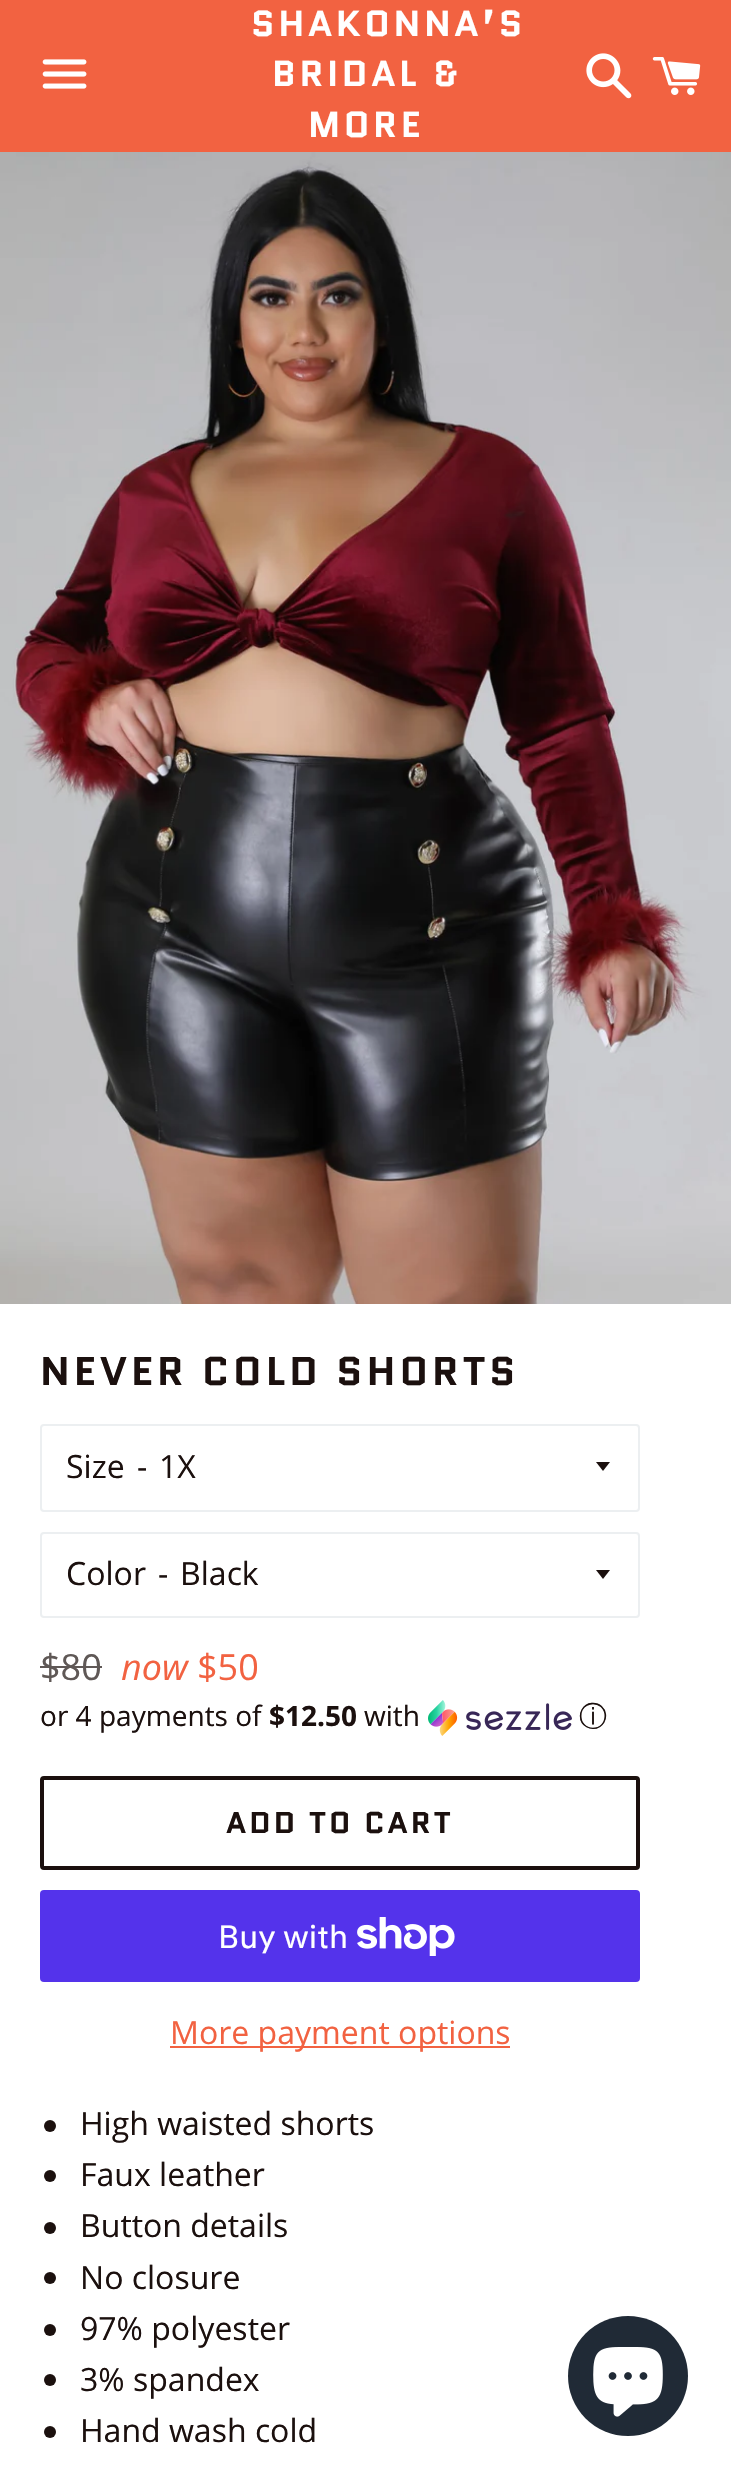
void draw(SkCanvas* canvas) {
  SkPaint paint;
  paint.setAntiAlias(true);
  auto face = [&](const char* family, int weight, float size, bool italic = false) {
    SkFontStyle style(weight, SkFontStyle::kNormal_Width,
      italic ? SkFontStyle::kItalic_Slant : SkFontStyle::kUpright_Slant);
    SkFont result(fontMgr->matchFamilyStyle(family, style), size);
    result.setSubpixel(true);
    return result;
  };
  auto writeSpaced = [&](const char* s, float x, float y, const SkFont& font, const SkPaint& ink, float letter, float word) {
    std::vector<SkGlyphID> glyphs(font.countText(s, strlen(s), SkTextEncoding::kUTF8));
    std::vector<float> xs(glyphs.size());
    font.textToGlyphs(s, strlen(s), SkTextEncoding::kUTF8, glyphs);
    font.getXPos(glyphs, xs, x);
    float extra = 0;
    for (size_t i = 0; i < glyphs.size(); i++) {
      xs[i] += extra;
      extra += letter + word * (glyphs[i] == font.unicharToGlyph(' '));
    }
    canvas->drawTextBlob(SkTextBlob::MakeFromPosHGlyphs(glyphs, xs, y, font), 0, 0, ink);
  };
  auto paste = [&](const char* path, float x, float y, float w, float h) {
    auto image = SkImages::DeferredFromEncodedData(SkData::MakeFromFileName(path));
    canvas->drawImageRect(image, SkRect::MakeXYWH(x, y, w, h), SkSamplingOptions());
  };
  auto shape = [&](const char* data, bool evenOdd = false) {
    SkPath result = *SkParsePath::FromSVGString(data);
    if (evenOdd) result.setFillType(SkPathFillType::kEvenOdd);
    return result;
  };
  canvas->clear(0xffffffff);
  paint.setColor(0xfff26241);
  canvas->drawRect(SkRect::MakeXYWH(0, 0, 731, 152), paint);
  paste("img/1.png", 42, 59, 45, 30);
  paste("img/2.png", 586, 53, 46, 46);
  paste("img/3.png", 652, 57, 49, 38);
  paste("img/4.png", 0, 152, 731, 1152);
  paint.setStroke(true);
  paint.setStrokeWidth(2);
  paint.setColor(0xffeceff1);
  canvas->drawRoundRect(SkRect::MakeXYWH(41, 1425, 598, 86), 3, 3, paint);
  paint.setStroke(false);
  paint.setColor(0xff1b100e);
  canvas->drawPath(shape("M596 1462L603 1471L610 1462Z"), paint);
  paint.setStroke(true);
  paint.setColor(0xffeceff1);
  canvas->drawRoundRect(SkRect::MakeXYWH(41, 1533, 598, 84), 3, 3, paint);
  paint.setStroke(false);
  paint.setColor(0xff1b100e);
  canvas->drawPath(shape("M596 1570L603 1579L610 1570Z"), paint);
  paint.setColor(0xff5f5856);
  canvas->drawRect(SkRect::MakeXYWH(40, 1666, 62, 2), paint);
  paste("img/5.png", 428, 1700, 144, 36);
  paint.setStroke(true);
  paint.setStrokeWidth(4);
  paint.setColor(0xff1b100e);
  canvas->drawRoundRect(SkRect::MakeXYWH(42, 1778, 596, 90), 2, 2, paint);
  paint.setStroke(false);
  paint.setColor(0xff5433eb);
  canvas->drawRoundRect(SkRect::MakeXYWH(40, 1890, 600, 92), 4, 4, paint);
  paste("img/6.png", 357, 1917, 98, 39);
  paint.setColor(0xfff26241);
  canvas->drawRect(SkRect::MakeXYWH(170, 2046, 340, 2), paint);
  paint.setColor(0xff1b100e);
  canvas->drawCircle(50, 2126, 6, paint);
  canvas->drawCircle(50, 2176, 6, paint);
  canvas->drawCircle(50, 2228, 6, paint);
  canvas->drawCircle(50, 2278, 6, paint);
  canvas->drawCircle(50, 2330, 6, paint);
  canvas->drawCircle(50, 2380, 6, paint);
  canvas->drawCircle(50, 2432, 6, paint);
  paint.setColor(0xff202a36);
  canvas->drawCircle(628, 2376, 60, paint);
  paste("img/7.png", 593, 2347, 70, 70);
  auto f0 = face("Quantico", 700, 36);
  paint.setColor(0xffffffff);
  {
    const struct { const char* s; float x, y; } items[] = {
      {"SHAKONNA’S", 251, 36},
      {"BRIDAL &", 272, 86},
      {"MORE", 308, 137},
    };
    for (auto [s, x, y] : items) {
      writeSpaced(s, x, y, f0, paint, 3.6f, 0);
    }
  }
  auto f1 = face("Quantico", 700, 40);
  paint.setColor(0xff1b100e);
  writeSpaced("NEVER COLD SHORTS", 40, 1385, f1, paint, 4, 0);
  auto f2 = face("Open Sans", 400, 32);
  {
    const struct { const char* s; float x, y; } items[] = {
      {"Size", 66, 1478},
      {"-", 137, 1478},
      {"1X", 159, 1478},
      {"Color", 66, 1585},
      {"-", 158, 1585},
      {"Black", 180, 1585},
    };
    for (auto [s, x, y] : items) {
      canvas->drawString(s, x, y, f2, paint);
    }
  }
  auto f3 = face("Open Sans", 400, 36);
  paint.setColor(0xff5f5856);
  canvas->drawString("$80", 40, 1680, f3, paint);
  auto f4 = face("Open Sans", 400, 36, true);
  paint.setColor(0xfff26241);
  canvas->drawString("now", 121, 1680, f4, paint);
  canvas->drawString("$50", 197, 1680, f3, paint);
  auto f5 = face("Open Sans", 400, 28);
  paint.setColor(0xff1b100e);
  canvas->drawString("or 4 payments of", 40, 1726, f5, paint);
  auto f6 = face("Open Sans", 700, 28);
  canvas->drawString("$12.50", 269, 1726, f6, paint);
  canvas->drawString("with", 364, 1726, f5, paint);
  auto f7 = face("WenQuanYi Zen Hei", 500, 28);
  canvas->drawString("ⓘ", 579, 1726, f7, paint);
  auto f8 = face("Quantico", 700, 30);
  writeSpaced("ADD TO CART", 226, 1833, f8, paint, 3, 0);
  auto f9 = face("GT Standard", 400, 32);
  paint.setColor(0xffffffff);
  canvas->drawString("Buy with", 218, 1948, f9, paint);
  paint.setColor(0xfff26241);
  canvas->drawString("More payment options", 170, 2044, f2, paint);
  paint.setColor(0xff1b100e);
  {
    const struct { const char* s; float x, y; } items[] = {
      {"High waisted shorts", 80, 2135},
      {"Faux leather", 80, 2186},
      {"Button details", 80, 2237},
      {"No closure", 80, 2289},
      {"97% polyester", 80, 2340},
      {"3% spandex", 80, 2391},
      {"Hand wash cold", 80, 2442},
    };
    for (auto [s, x, y] : items) {
      canvas->drawString(s, x, y, f2, paint);
    }
  }
}
